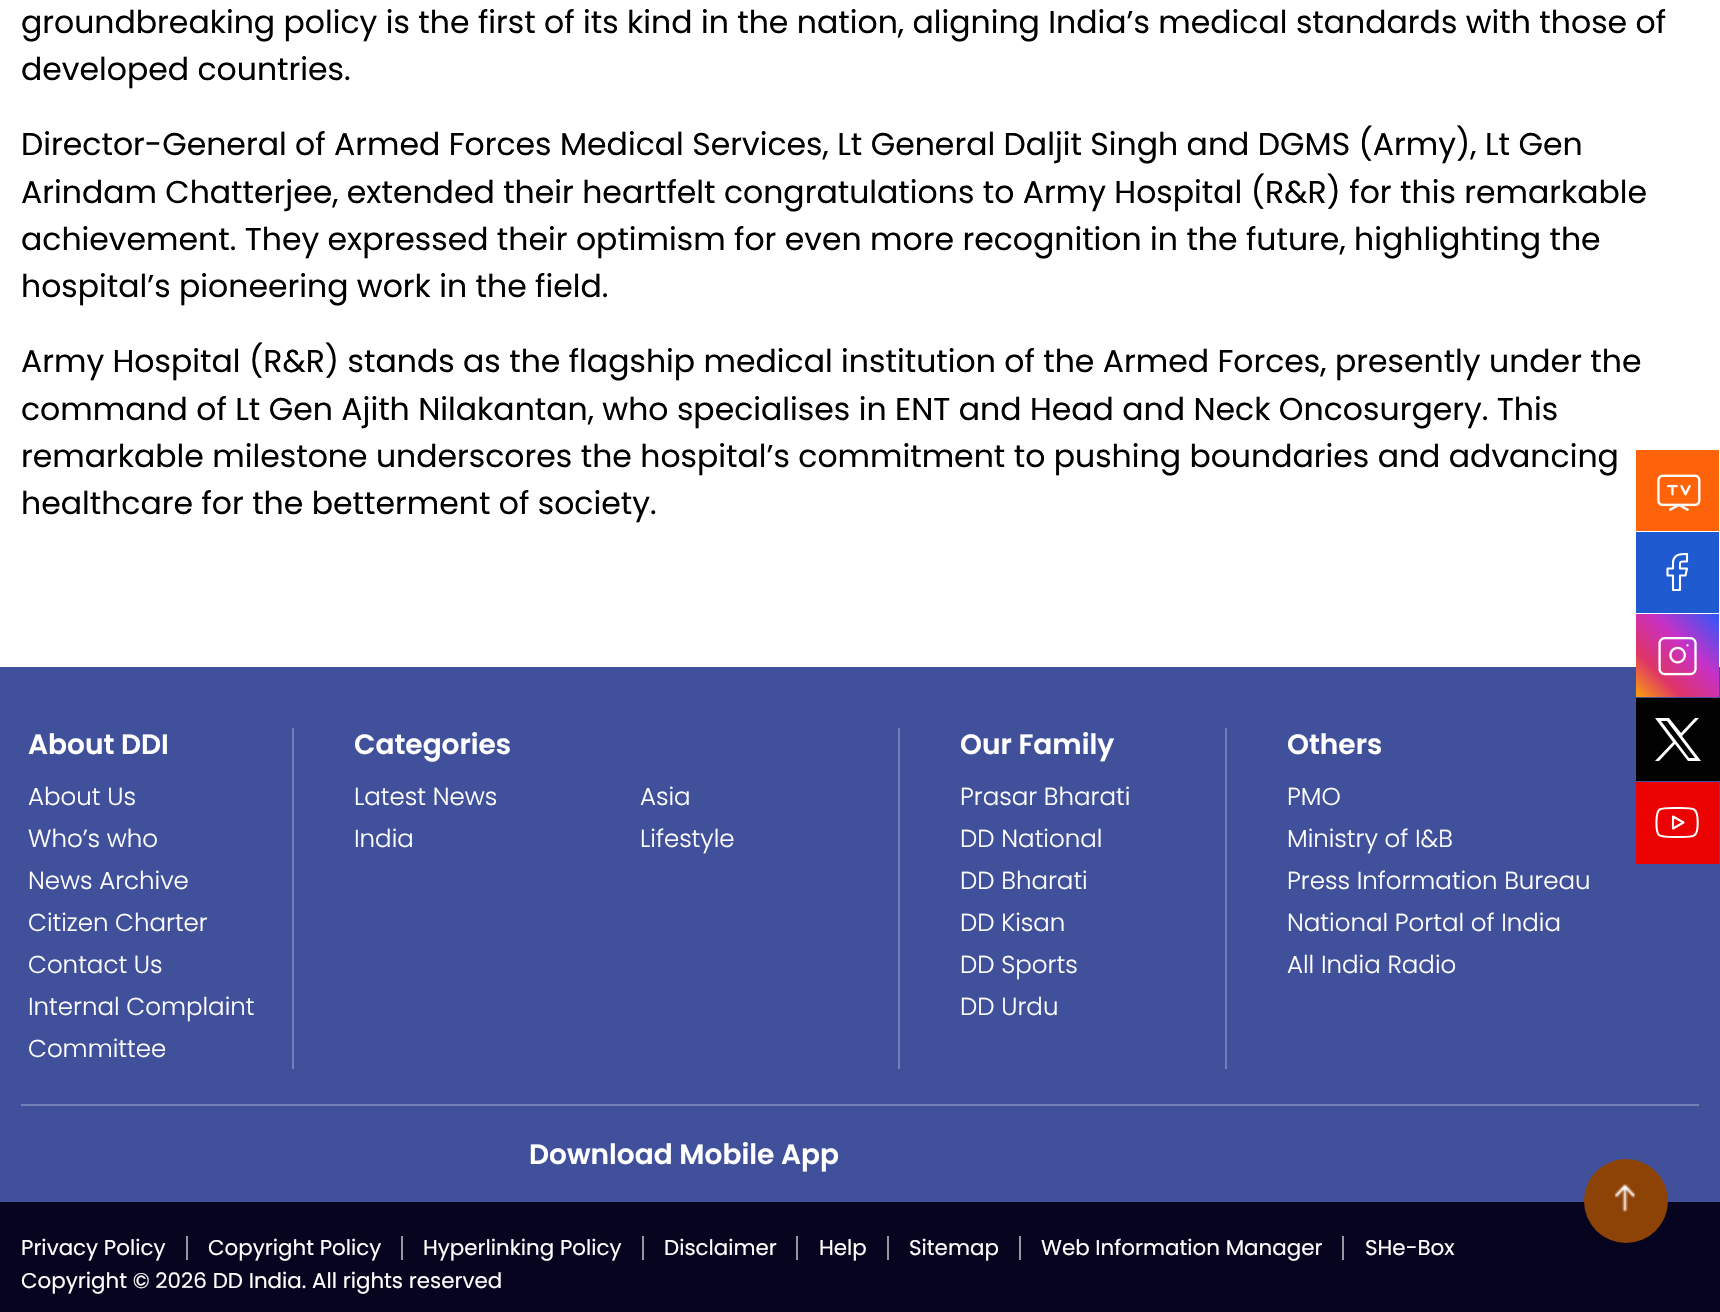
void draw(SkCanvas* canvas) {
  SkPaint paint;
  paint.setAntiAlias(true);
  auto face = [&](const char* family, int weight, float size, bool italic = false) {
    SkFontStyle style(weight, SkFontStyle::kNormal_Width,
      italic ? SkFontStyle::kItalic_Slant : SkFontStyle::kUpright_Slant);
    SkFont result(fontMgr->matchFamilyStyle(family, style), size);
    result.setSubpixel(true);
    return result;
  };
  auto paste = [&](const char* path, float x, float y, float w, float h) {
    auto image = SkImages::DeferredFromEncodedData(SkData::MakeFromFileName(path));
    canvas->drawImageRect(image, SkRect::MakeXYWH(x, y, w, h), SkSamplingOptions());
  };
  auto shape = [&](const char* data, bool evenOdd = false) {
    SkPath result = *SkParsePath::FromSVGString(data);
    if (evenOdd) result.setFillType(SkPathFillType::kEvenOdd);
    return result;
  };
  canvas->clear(0xffffffff);
  paste("img/1.png", 1636, 450, 83, 81);
  paint.setColor(0xff1f5ad1);
  canvas->drawRect(SkRect::MakeXYWH(1636, 532, 83, 81), paint);
  paint.setStroke(true);
  paint.setStrokeWidth(2.1f);
  paint.setStrokeCap(SkPaint::kRound_Cap);
  paint.setStrokeJoin(SkPaint::kRound_Join);
  paint.setColor(0xffffffff);
  canvas->drawPath(shape("M1687 554C1681 554 1674.5 553.5 1673 561.5V568.5H1667.5V575.5H1673V590H1680V575.5H1685.5L1687 568.5H1680C1680 560.5 1679 561.5 1687 561.5Z"), paint);
  paint.setStroke(false);
  paint.setColor(0xff41509b);
  canvas->drawRect(SkRect::MakeXYWH(0, 667, 1720, 535), paint);
  paste("img/2.png", 1636, 614, 83, 83);
  paint.setColor(0xff010101);
  canvas->drawRect(SkRect::MakeXYWH(1636, 698, 84, 83), paint);
  paint.setColor(0xffffffff);
  canvas->drawPath(shape("M1655 718L1673 742L1655 761H1659L1675 744L1688 761H1701L1682 736L1699 718H1695L1681 733L1669 718ZM1661 721H1667L1695 758H1689Z"), paint);
  paint.setColor(0xffeb0202);
  canvas->drawRect(SkRect::MakeXYWH(1636, 782, 83, 82), paint);
  paint.setStroke(true);
  paint.setColor(0xffffffff);
  canvas->drawPath(shape("M1677 837C1673 837 1662.5 837.5 1659 835C1655.5 832 1655.5 812.5 1659.5 809.5C1663 807.5 1673 808 1677 808C1681 808 1691 807.5 1694 809.5C1699 812.5 1699 833 1694 835.5C1691 837.5 1681 837 1677 837ZM1673 816.5V828.5L1683.5 822.5Z"), paint);
  paint.setStroke(false);
  {
    const struct { float x, y, w, h; SkColor color; } items[] = {
      {21, 1104, 1678, 2, 0xff747fb6},
      {292, 728, 2, 341, 0xff747fb6},
      {898, 728, 2, 341, 0xff747fb6},
      {1225, 728, 2, 341, 0xff747fb6},
      {0, 1202, 1720, 110, 0xff070420},
    };
    for (auto [x, y, w, h, color] : items) {
      paint.setColor(color);
      canvas->drawRect(SkRect::MakeXYWH(x, y, w, h), paint);
    }
  }
  paint.setColor(0xff8e4306);
  canvas->drawCircle(1626, 1201, 42, paint);
  paste("img/3.png", 1614, 1184, 21, 28);
  {
    const struct { float x, y, w, h; SkColor color; } items[] = {
      {186, 1236, 2, 24, 0xff9796a1},
      {401, 1236, 2, 24, 0xff9796a1},
      {642, 1236, 2, 24, 0xff9796a1},
      {796, 1236, 2, 24, 0xff9796a1},
      {887, 1236, 2, 24, 0xff9796a1},
      {1019, 1236, 2, 24, 0xff9796a1},
      {1342, 1236, 2, 24, 0xff9796a1},
    };
    for (auto [x, y, w, h, color] : items) {
      paint.setColor(color);
      canvas->drawRect(SkRect::MakeXYWH(x, y, w, h), paint);
    }
  }
  auto f0 = face("Poppins", 400, 31.5f);
  paint.setColor(0xff000000);
  {
    const struct { const char* s; float x, y; } items[] = {
      {"groundbreaking policy is the first of its kind in the nation, aligning India’s medical standards with those of", 21, 33},
      {"developed countries.", 21, 80},
      {"Director-General of Armed Forces Medical Services, Lt General Daljit Singh and DGMS (Army), Lt Gen", 21, 155},
      {"Arindam Chatterjee, extended their heartfelt congratulations to Army Hospital (R&R) for this remarkable", 21, 203},
      {"achievement. They expressed their optimism for even more recognition in the future, highlighting the", 21, 250},
      {"hospital’s pioneering work in the field.", 21, 297},
      {"Army Hospital (R&R) stands as the flagship medical institution of the Armed Forces, presently under the", 21, 372},
      {"command of Lt Gen Ajith Nilakantan, who specialises in ENT and Head and Neck Oncosurgery. This", 21, 420},
      {"remarkable milestone underscores the hospital’s commitment to pushing boundaries and advancing", 21, 467},
      {"healthcare for the betterment of society.", 21, 514},
    };
    for (auto [s, x, y] : items) {
      canvas->drawString(s, x, y, f0, paint);
    }
  }
  auto f1 = face("Poppins", 600, 28);
  paint.setColor(0xffffffff);
  canvas->drawString("About DDI", 28, 754, f1, paint);
  auto f2 = face("Poppins", 300, 24.5f);
  {
    const struct { const char* s; float x, y; } items[] = {
      {"About Us", 28, 805},
      {"Who’s who", 28, 847},
      {"News Archive", 28, 889},
      {"Citizen Charter", 28, 931},
      {"Contact Us", 28, 973},
      {"Internal Complaint", 28, 1015},
      {"Committee", 28, 1057},
    };
    for (auto [s, x, y] : items) {
      canvas->drawString(s, x, y, f2, paint);
    }
  }
  canvas->drawString("Categories", 354, 754, f1, paint);
  {
    const struct { const char* s; float x, y; } items[] = {
      {"Latest News", 354, 805},
      {"Asia", 640, 805},
      {"India", 354, 847},
      {"Lifestyle", 640, 847},
    };
    for (auto [s, x, y] : items) {
      canvas->drawString(s, x, y, f2, paint);
    }
  }
  canvas->drawString("Our Family", 960, 754, f1, paint);
  {
    const struct { const char* s; float x, y; } items[] = {
      {"Prasar Bharati", 960, 805},
      {"DD National", 960, 847},
      {"DD Bharati", 960, 889},
      {"DD Kisan", 960, 931},
      {"DD Sports", 960, 973},
      {"DD Urdu", 960, 1015},
    };
    for (auto [s, x, y] : items) {
      canvas->drawString(s, x, y, f2, paint);
    }
  }
  canvas->drawString("Others", 1287, 754, f1, paint);
  {
    const struct { const char* s; float x, y; } items[] = {
      {"PMO", 1287, 805},
      {"Ministry of I&B", 1287, 847},
      {"Press Information Bureau", 1287, 889},
      {"National Portal of India", 1287, 931},
      {"All India Radio", 1287, 973},
    };
    for (auto [s, x, y] : items) {
      canvas->drawString(s, x, y, f2, paint);
    }
  }
  canvas->drawString("Download Mobile App", 529, 1164, f1, paint);
  auto f3 = face("Poppins", 400, 21.4f);
  {
    const struct { const char* s; float x, y; } items[] = {
      {"Privacy Policy", 21, 1255},
      {"Copyright Policy", 208, 1255},
      {"Hyperlinking Policy", 423, 1255},
      {"Disclaimer", 664, 1255},
      {"Help", 819, 1255},
      {"Sitemap", 909, 1255},
      {"Web Information Manager", 1041, 1255},
      {"SHe-Box", 1365, 1255},
      {"Copyright © 2026 DD India. All rights reserved", 21, 1288},
    };
    for (auto [s, x, y] : items) {
      canvas->drawString(s, x, y, f3, paint);
    }
  }
}
